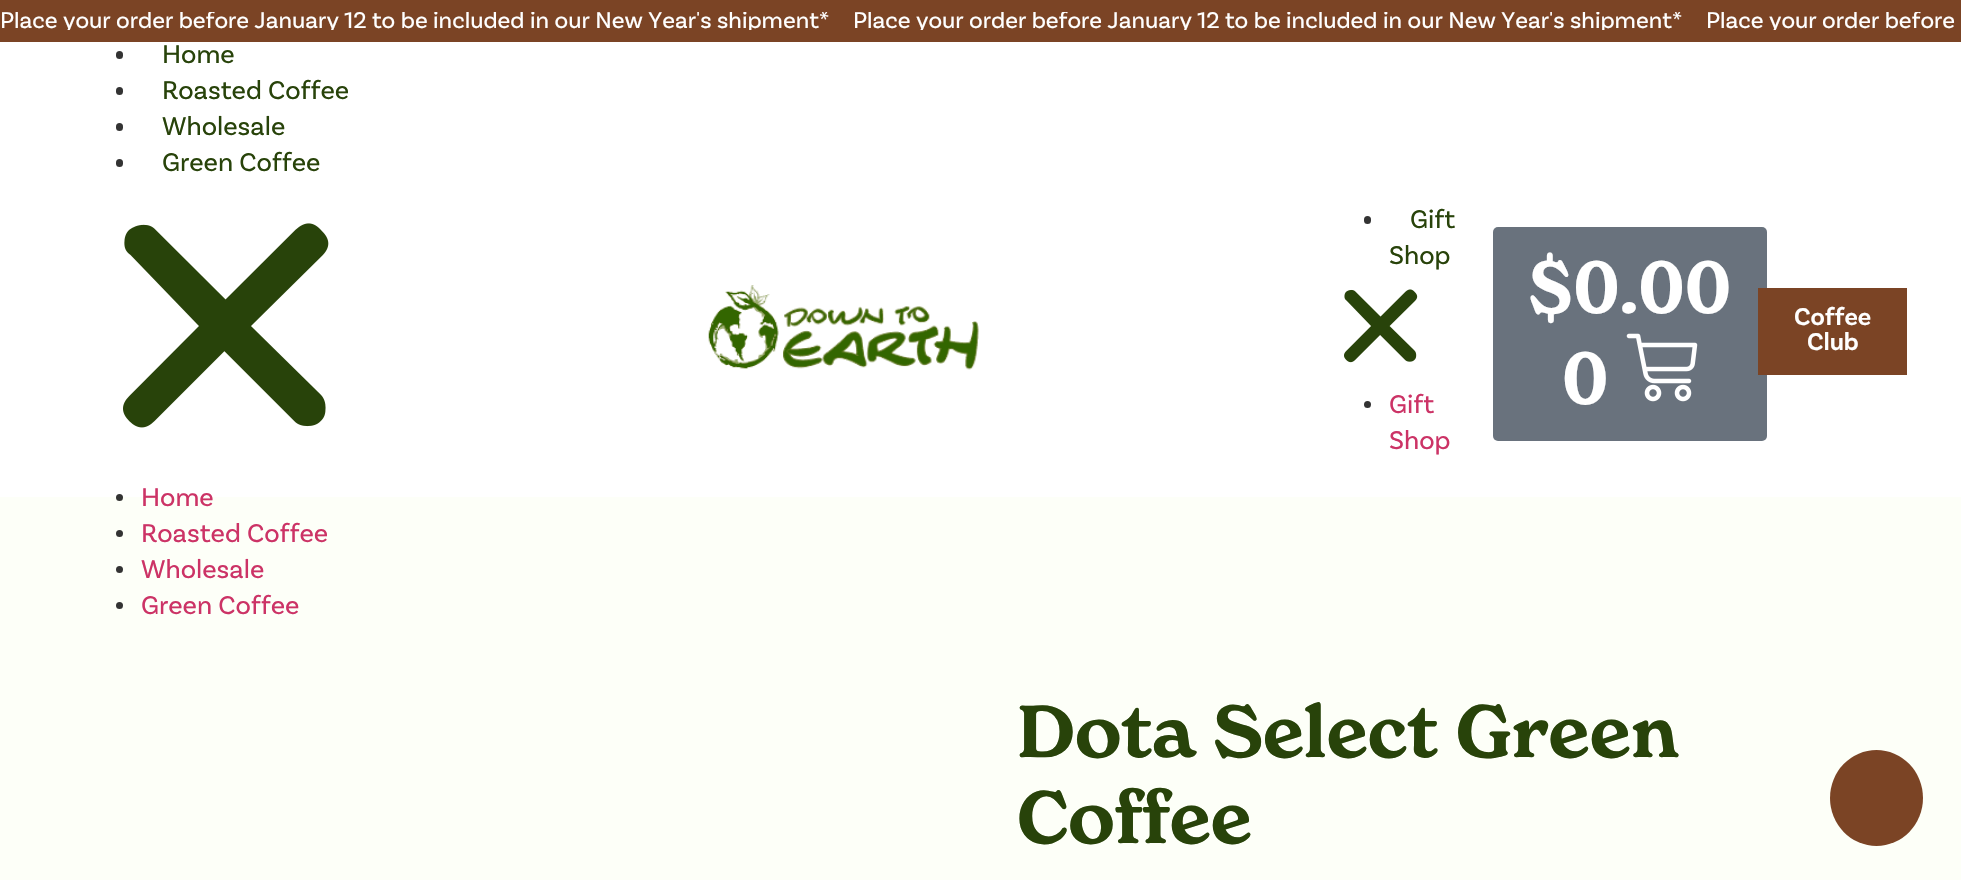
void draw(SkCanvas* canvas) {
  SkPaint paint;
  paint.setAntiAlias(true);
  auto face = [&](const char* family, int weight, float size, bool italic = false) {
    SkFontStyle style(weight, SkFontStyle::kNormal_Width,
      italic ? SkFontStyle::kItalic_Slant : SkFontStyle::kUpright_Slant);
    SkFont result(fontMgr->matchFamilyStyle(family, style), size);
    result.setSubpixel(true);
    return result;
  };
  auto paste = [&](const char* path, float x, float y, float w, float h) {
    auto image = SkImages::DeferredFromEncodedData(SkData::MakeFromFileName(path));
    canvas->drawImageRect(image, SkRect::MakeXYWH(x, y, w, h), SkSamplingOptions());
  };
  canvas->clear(0xffffffff);
  paint.setColor(0xff7b4425);
  canvas->drawRect(SkRect::MakeXYWH(0, 0, 1961, 42), paint);
  paint.setColor(0xff333333);
  canvas->drawRoundRect(SkRect::MakeXYWH(116, 51, 7, 8), 3.5f, 3.5f, paint);
  canvas->drawRoundRect(SkRect::MakeXYWH(116, 87, 7, 8), 3.5f, 3.5f, paint);
  canvas->drawRoundRect(SkRect::MakeXYWH(116, 123, 7, 8), 3.5f, 3.5f, paint);
  canvas->drawRoundRect(SkRect::MakeXYWH(116, 159, 7, 8), 3.5f, 3.5f, paint);
  paste("img/1.png", 123, 223, 206, 205);
  paint.setColor(0xfffdfff8);
  canvas->drawRect(SkRect::MakeXYWH(0, 497, 1961, 383), paint);
  paint.setColor(0xff333333);
  canvas->drawCircle(119.5f, 497.5f, 3.5f, paint);
  canvas->drawCircle(119.5f, 533.5f, 3.5f, paint);
  canvas->drawCircle(119.5f, 569.5f, 3.5f, paint);
  canvas->drawCircle(119.5f, 605.5f, 3.5f, paint);
  paste("img/2.png", 708, 285, 271, 85);
  canvas->drawRoundRect(SkRect::MakeXYWH(1364, 216, 7, 8), 3.5f, 3.5f, paint);
  paste("img/3.png", 1344, 289, 74, 74);
  canvas->drawCircle(1367.5f, 404.5f, 3.5f, paint);
  paint.setColor(0xff69727d);
  canvas->drawRoundRect(SkRect::MakeXYWH(1493, 227, 274, 214), 5, 5, paint);
  paste("img/4.png", 1626, 333, 72, 69);
  paint.setColor(0xff7b4425);
  canvas->drawRect(SkRect::MakeXYWH(1758, 288, 149, 87), paint);
  canvas->drawOval(SkRect::MakeXYWH(1830, 750, 93, 96), paint);
  canvas->save();
  canvas->clipRect(SkRect::MakeXYWH(0, 12, 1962, 18));
  auto f0 = face("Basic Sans", 400, 24);
  paint.setColor(0xffffffff);
  {
    const struct { const char* s; float x, y; } items[] = {
      {"Place your order before January 12 to be included in our New Year's shipment*", 0, 28},
      {"Place your order before January 12 to be included in our New Year's shipment*", 853, 28},
      {"Place your order before", 1706, 28},
    };
    for (auto [s, x, y] : items) {
      canvas->drawString(s, x, y, f0, paint);
    }
  }
  canvas->restore();
  auto f1 = face("Basic Sans", 400, 27);
  paint.setColor(0xff28430a);
  {
    const struct { const char* s; float x, y; } items[] = {
      {"Home", 162, 63},
      {"Roasted Coffee", 162, 99},
      {"Wholesale", 162, 135},
      {"Green Coffee", 162, 171},
    };
    for (auto [s, x, y] : items) {
      canvas->drawString(s, x, y, f1, paint);
    }
  }
  paint.setColor(0xffcc3366);
  {
    const struct { const char* s; float x, y; } items[] = {
      {"Home", 141, 506},
      {"Roasted Coffee", 141, 542},
      {"Wholesale", 141, 578},
      {"Green Coffee", 141, 614},
    };
    for (auto [s, x, y] : items) {
      canvas->drawString(s, x, y, f1, paint);
    }
  }
  paint.setColor(0xff28430a);
  canvas->drawString("Gift", 1410, 228, f1, paint);
  canvas->drawString("Shop", 1389, 264, f1, paint);
  paint.setColor(0xffcc3366);
  canvas->drawString("Gift", 1389, 413, f1, paint);
  canvas->drawString("Shop", 1389, 449, f1, paint);
  auto f2 = face("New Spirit", 600, 72);
  paint.setColor(0xffffffff);
  canvas->drawString("$0.00", 1528, 313, f2, paint);
  canvas->drawString("0", 1562, 404, f2, paint);
  auto f3 = face("Basic Sans", 600, 25.5f);
  canvas->drawString("Coffee", 1794, 325, f3, paint);
  canvas->drawString("Club", 1807, 350, f3, paint);
  paint.setColor(0xff28430a);
  canvas->drawString("Dota Select Green", 1017, 757, f2, paint);
  canvas->drawString("Coffee", 1017, 843, f2, paint);
}
